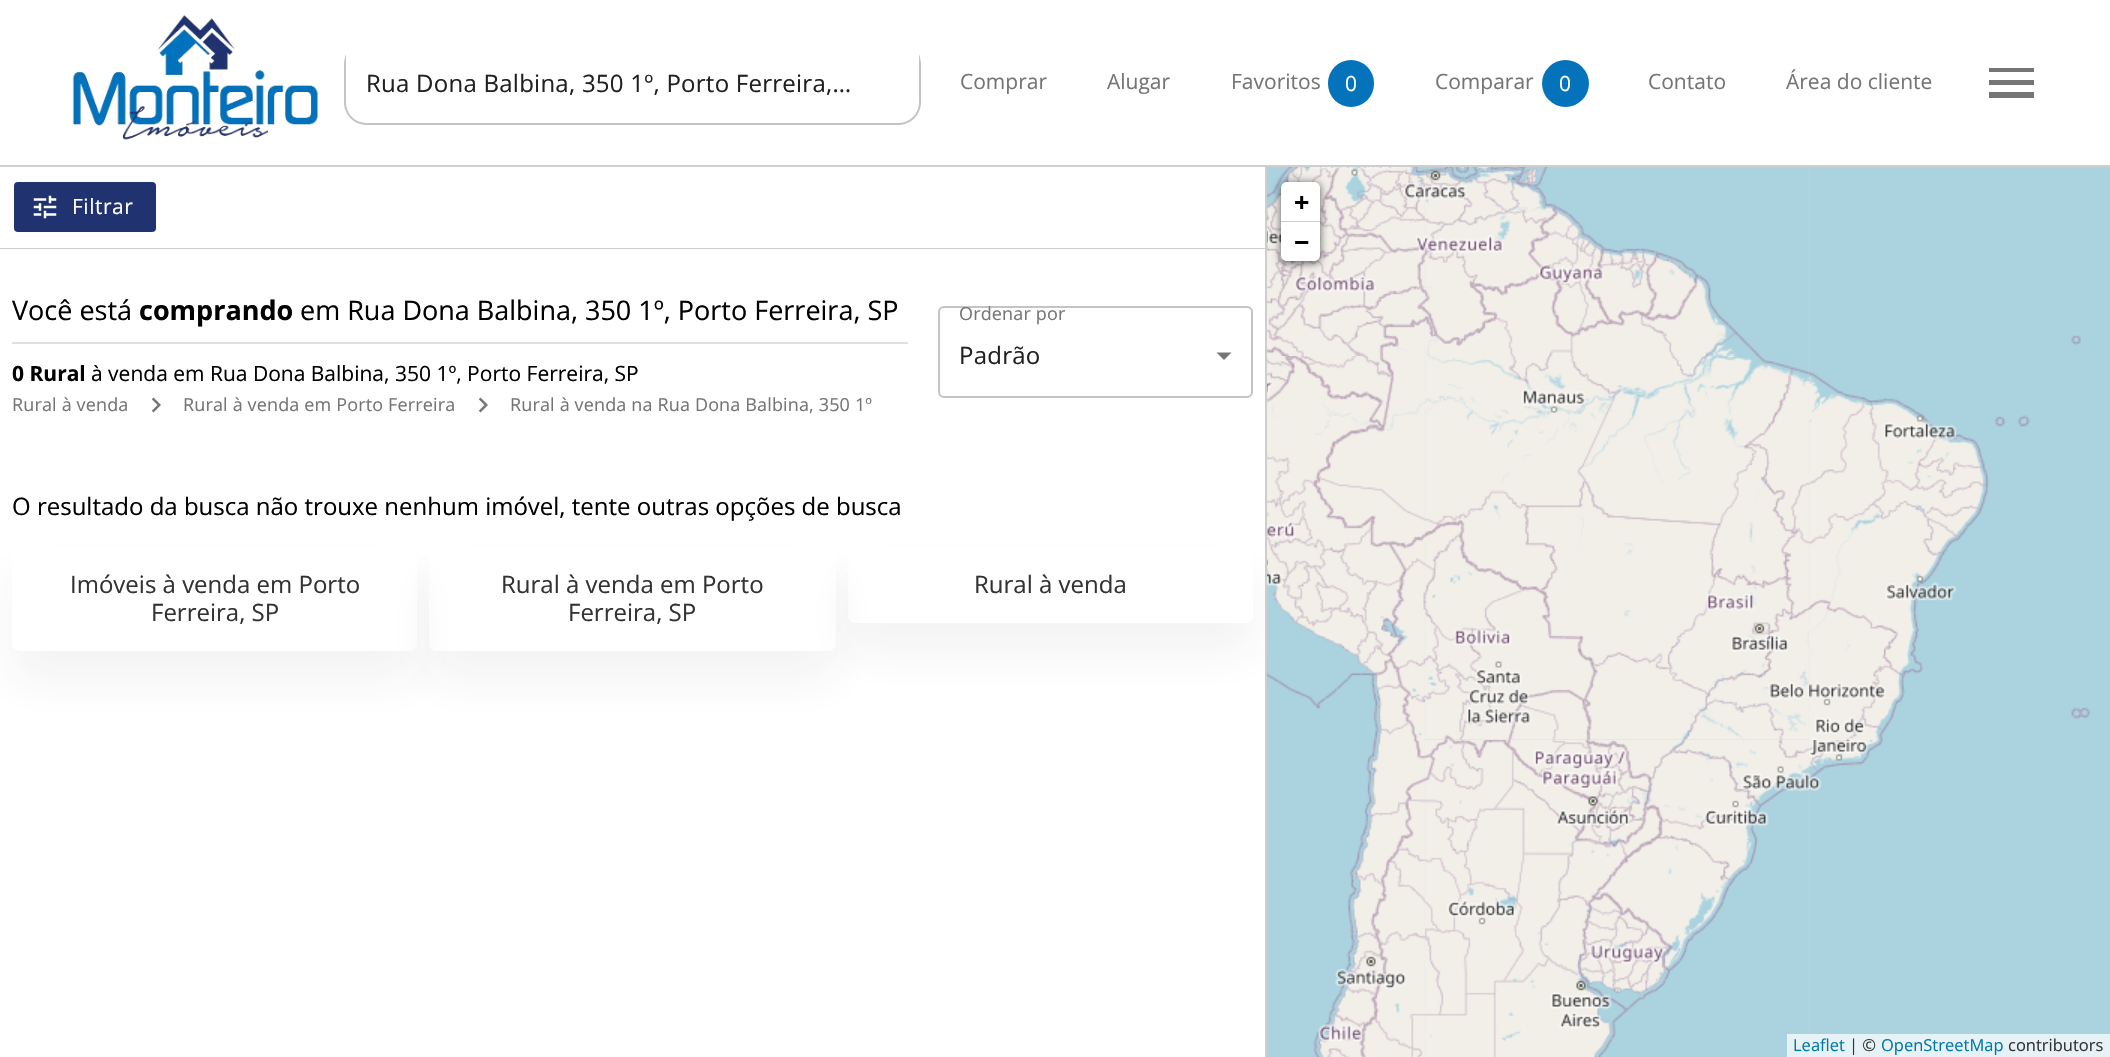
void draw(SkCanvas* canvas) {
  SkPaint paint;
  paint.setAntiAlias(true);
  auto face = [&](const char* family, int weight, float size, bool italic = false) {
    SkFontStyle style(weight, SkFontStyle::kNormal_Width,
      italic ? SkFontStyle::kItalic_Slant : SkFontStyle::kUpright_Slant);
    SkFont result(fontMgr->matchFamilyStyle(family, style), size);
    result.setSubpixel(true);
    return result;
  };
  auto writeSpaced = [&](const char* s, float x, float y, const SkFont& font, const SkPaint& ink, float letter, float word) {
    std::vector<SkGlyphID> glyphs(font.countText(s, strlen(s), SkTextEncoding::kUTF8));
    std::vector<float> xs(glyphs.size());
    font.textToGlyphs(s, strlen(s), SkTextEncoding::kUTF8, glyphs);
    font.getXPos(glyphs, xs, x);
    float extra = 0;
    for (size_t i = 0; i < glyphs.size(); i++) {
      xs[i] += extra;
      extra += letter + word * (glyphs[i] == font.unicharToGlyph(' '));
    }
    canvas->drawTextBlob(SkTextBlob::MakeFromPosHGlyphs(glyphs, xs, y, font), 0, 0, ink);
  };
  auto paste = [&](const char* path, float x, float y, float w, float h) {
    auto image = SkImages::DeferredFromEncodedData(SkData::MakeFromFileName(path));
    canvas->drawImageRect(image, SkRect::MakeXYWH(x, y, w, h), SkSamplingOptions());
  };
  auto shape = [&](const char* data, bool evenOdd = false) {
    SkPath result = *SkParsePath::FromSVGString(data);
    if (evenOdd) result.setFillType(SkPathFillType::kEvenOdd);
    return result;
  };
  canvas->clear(0xffffffff);
  paste("img/1.png", 72, 14, 247, 126);
  paint.setColor(0xff0473bc);
  canvas->drawRoundRect(SkRect::MakeXYWH(1328, 60, 46, 47), 23, 23, paint);
  canvas->drawCircle(1565.5f, 83.5f, 23.5f, paint);
  paint.setColor(0xff757575);
  canvas->drawPath(shape("M1989 98H2034V92H1989ZM1989 85H2034V80H1989ZM1989 68V72H2034V68Z"), paint);
  {
    const struct { float x, y, w, h; SkColor color; } items[] = {
      {0, 165, 2110, 2, 0xffcecece},
      {1265, 167, 2, 890, 0xffcecece},
      {0, 248, 1265, 1, 0xffcecece},
    };
    for (auto [x, y, w, h, color] : items) {
      paint.setColor(color);
      canvas->drawRect(SkRect::MakeXYWH(x, y, w, h), paint);
    }
  }
  paint.setColor(0xff203270);
  canvas->drawRoundRect(SkRect::MakeXYWH(13, 181, 144, 52), 5, 5, paint);
  paint.setStroke(true);
  paint.setStrokeWidth(2);
  paint.setColor(0xffffffff);
  canvas->drawRoundRect(SkRect::MakeXYWH(13, 181, 144, 52), 5, 5, paint);
  paste("img/2.png", 33, 195, 24, 24);
  paint.setStroke(false);
  paint.setColor(0xffe0e0e0);
  canvas->drawRect(SkRect::MakeXYWH(12, 342, 896, 2), paint);
  paste("img/3.png", 151, 397, 10, 16);
  paste("img/3.png", 478, 397, 10, 16);
  paint.setColor(0xff757575);
  canvas->drawPath(shape("M1216.5 352.5L1224 360L1231.5 352.5Z"), paint);
  paint.setStroke(true);
  paint.setColor(0xffc4c4c4);
  canvas->drawRoundRect(SkRect::MakeXYWH(939, 307, 313, 90), 5, 5, paint);
  canvas->save();
  canvas->clipPath(shape("M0 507H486V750H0ZM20 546H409C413.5 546 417 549.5 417 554V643C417 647.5 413.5 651 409 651H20C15.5 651 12 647.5 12 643V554C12 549.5 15.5 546 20 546Z", true), true);
  paint.setStroke(false);
  paint.setColor(0x0f333333);
  paint.setMaskFilter(SkMaskFilter::MakeBlur(kNormal_SkBlurStyle, 22.5f));
  canvas->drawRoundRect(SkRect::MakeXYWH(12, 576, 405, 105), 8, 8, paint);
  paint.setMaskFilter(nullptr);
  canvas->restore();
  canvas->save();
  canvas->clipPath(shape("M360 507H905V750H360ZM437 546H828C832.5 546 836 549.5 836 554V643C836 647.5 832.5 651 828 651H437C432.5 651 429 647.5 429 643V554C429 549.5 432.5 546 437 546Z", true), true);
  paint.setMaskFilter(SkMaskFilter::MakeBlur(kNormal_SkBlurStyle, 22.5f));
  canvas->drawRoundRect(SkRect::MakeXYWH(429, 576, 407, 105), 8, 8, paint);
  paint.setMaskFilter(nullptr);
  canvas->restore();
  paint.setColor(0xffdddddd);
  canvas->drawRect(SkRect::MakeXYWH(1424, 167, 385, 890), paint);
  paste("img/8.png", 1425, 355, 384, 385);
  paste("img/7.png", 1267, 356, 159, 384);
  canvas->save();
  canvas->clipRect(SkRect::MakeXYWH(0, 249, 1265, 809));
  canvas->clipPath(shape("M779 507H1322V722H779ZM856 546H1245C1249.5 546 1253 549.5 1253 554V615C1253 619.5 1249.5 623 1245 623H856C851.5 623 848 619.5 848 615V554C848 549.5 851.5 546 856 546Z", true), true);
  paint.setColor(0x0f333333);
  paint.setMaskFilter(SkMaskFilter::MakeBlur(kNormal_SkBlurStyle, 22.5f));
  canvas->drawRoundRect(SkRect::MakeXYWH(848, 576, 405, 77), 8, 8, paint);
  paint.setMaskFilter(nullptr);
  canvas->restore();
  paste("img/5.png", 1425, 167, 384, 189);
  paste("img/4.png", 1267, 167, 159, 189);
  paste("img/6.png", 1809, 167, 301, 189);
  paste("img/9.png", 1809, 356, 301, 384);
  paste("img/11.png", 1425, 740, 384, 317);
  paste("img/10.png", 1267, 740, 159, 317);
  paste("img/12.png", 1809, 740, 301, 317);
  paint.setColor(0xa6000000);
  paint.setMaskFilter(SkMaskFilter::MakeBlur(kNormal_SkBlurStyle, 4));
  canvas->drawRoundRect(SkRect::MakeXYWH(1281, 183, 39, 80), 6, 6, paint);
  paint.setMaskFilter(nullptr);
  paint.setColor(0xffffffff);
  canvas->drawPath(shape("M1287 182H1314C1317.5 182 1320 184.5 1320 188V222H1281V188C1281 184.5 1283.5 182 1287 182Z"), paint);
  paint.setColor(0xffcccccc);
  canvas->drawRect(SkRect::MakeXYWH(1281, 221, 39, 1), paint);
  paint.setColor(0xffffffff);
  canvas->drawPath(shape("M1281 222H1320V255C1320 258.5 1317.5 261 1314 261H1287C1283.5 261 1281 258.5 1281 255Z"), paint);
  paint.setColor(0xb3ffffff);
  canvas->drawRect(SkRect::MakeXYWH(1787, 1034, 323, 23), paint);
  auto f0 = face("Open Sans", 400, 24);
  paint.setColor(0xff212121);
  writeSpaced("Rua Dona Balbina, 350 1º, Porto Ferreira,…", 366, 92, f0, paint, 0.25f, 0);
  paint.setColor(0xffc4c4c4);
  canvas->drawPath(shape("M344 64V102C344 115 354 125 367 125H898C911 125 921 115 921 102V64C921 61 920 57 919 54V102C919 114 910 123 898 123H367C355 123 346 114 346 102V54C345 57 344 61 344 64Z"), paint);
  auto f1 = face("Open Sans", 400, 21);
  paint.setColor(0xff757575);
  {
    const struct { const char* s; float x, y; } items[] = {
      {"Comprar", 960, 89},
      {"Alugar", 1107, 89},
      {"Favoritos", 1231, 89},
    };
    for (auto [s, x, y] : items) {
      canvas->drawString(s, x, y, f1, paint);
    }
  }
  paint.setColor(0xffffffff);
  canvas->drawString("0", 1345, 91, f1, paint);
  paint.setColor(0xff757575);
  canvas->drawString("Comparar", 1435, 89, f1, paint);
  paint.setColor(0xffffffff);
  canvas->drawString("0", 1559, 91, f1, paint);
  paint.setColor(0xff757575);
  canvas->drawString("Contato", 1648, 89, f1, paint);
  canvas->drawString("Área do cliente", 1786, 89, f1, paint);
  paint.setColor(0xffffffff);
  writeSpaced("Filtrar", 72, 214, f1, paint, 0.5f, 0);
  auto f2 = face("Open Sans", 400, 27);
  paint.setColor(0xff000000);
  canvas->drawString("Você está", 12, 320, f2, paint);
  auto f3 = face("Open Sans", 700, 27);
  canvas->drawString("comprando", 139, 320, f3, paint);
  canvas->drawString("em Rua Dona Balbina, 350 1º, Porto Ferreira, SP", 300, 320, f2, paint);
  auto f4 = face("Open Sans", 700, 21);
  canvas->drawString("0 Rural", 12, 381, f4, paint);
  canvas->drawString("à venda em Rua Dona Balbina, 350 1º, Porto Ferreira, SP", 91, 381, f1, paint);
  auto f5 = face("Open Sans", 400, 18);
  paint.setColor(0xff757575);
  {
    const struct { const char* s; float x, y; } items[] = {
      {"Rural à venda", 12, 411},
      {"Rural à venda em Porto Ferreira", 183, 411},
      {"Rural à venda na Rua Dona Balbina, 350 1º", 510, 411},
      {"Ordenar por", 959, 320},
    };
    for (auto [s, x, y] : items) {
      writeSpaced(s, x, y, f5, paint, 0.15f, 0);
    }
  }
  paint.setColor(0xff212121);
  writeSpaced("Padrão", 959, 364, f0, paint, 0.25f, 0);
  paint.setColor(0xff000000);
  canvas->drawString("O resultado da busca não trouxe nenhum imóvel, tente outras opções de busca", 12, 515, f0, paint);
  paint.setColor(0xff333333);
  {
    const struct { const char* s; float x, y; } items[] = {
      {"Imóveis à venda em Porto", 70, 593},
      {"Ferreira, SP", 151, 621},
      {"Rural à venda em Porto", 501, 593},
      {"Ferreira, SP", 568, 621},
      {"Rural à venda", 974, 593},
    };
    for (auto [s, x, y] : items) {
      canvas->drawString(s, x, y, f0, paint);
    }
  }
  paint.setColor(0xff000000);
  canvas->drawString("+", 1294, 212, f3, paint);
  canvas->drawString("−", 1294, 252, f3, paint);
  auto f6 = face("Open Sans", 400, 16.5f);
  paint.setColor(0xff0078a8);
  canvas->drawString("Leaflet", 1793, 1051, f6, paint);
  paint.setColor(0xff333333);
  canvas->drawString("| ©", 1849, 1051, f6, paint);
  paint.setColor(0xff0078a8);
  canvas->drawString("OpenStreetMap", 1881, 1051, f6, paint);
  paint.setColor(0xff333333);
  canvas->drawString("contributors", 2008, 1051, f6, paint);
}
